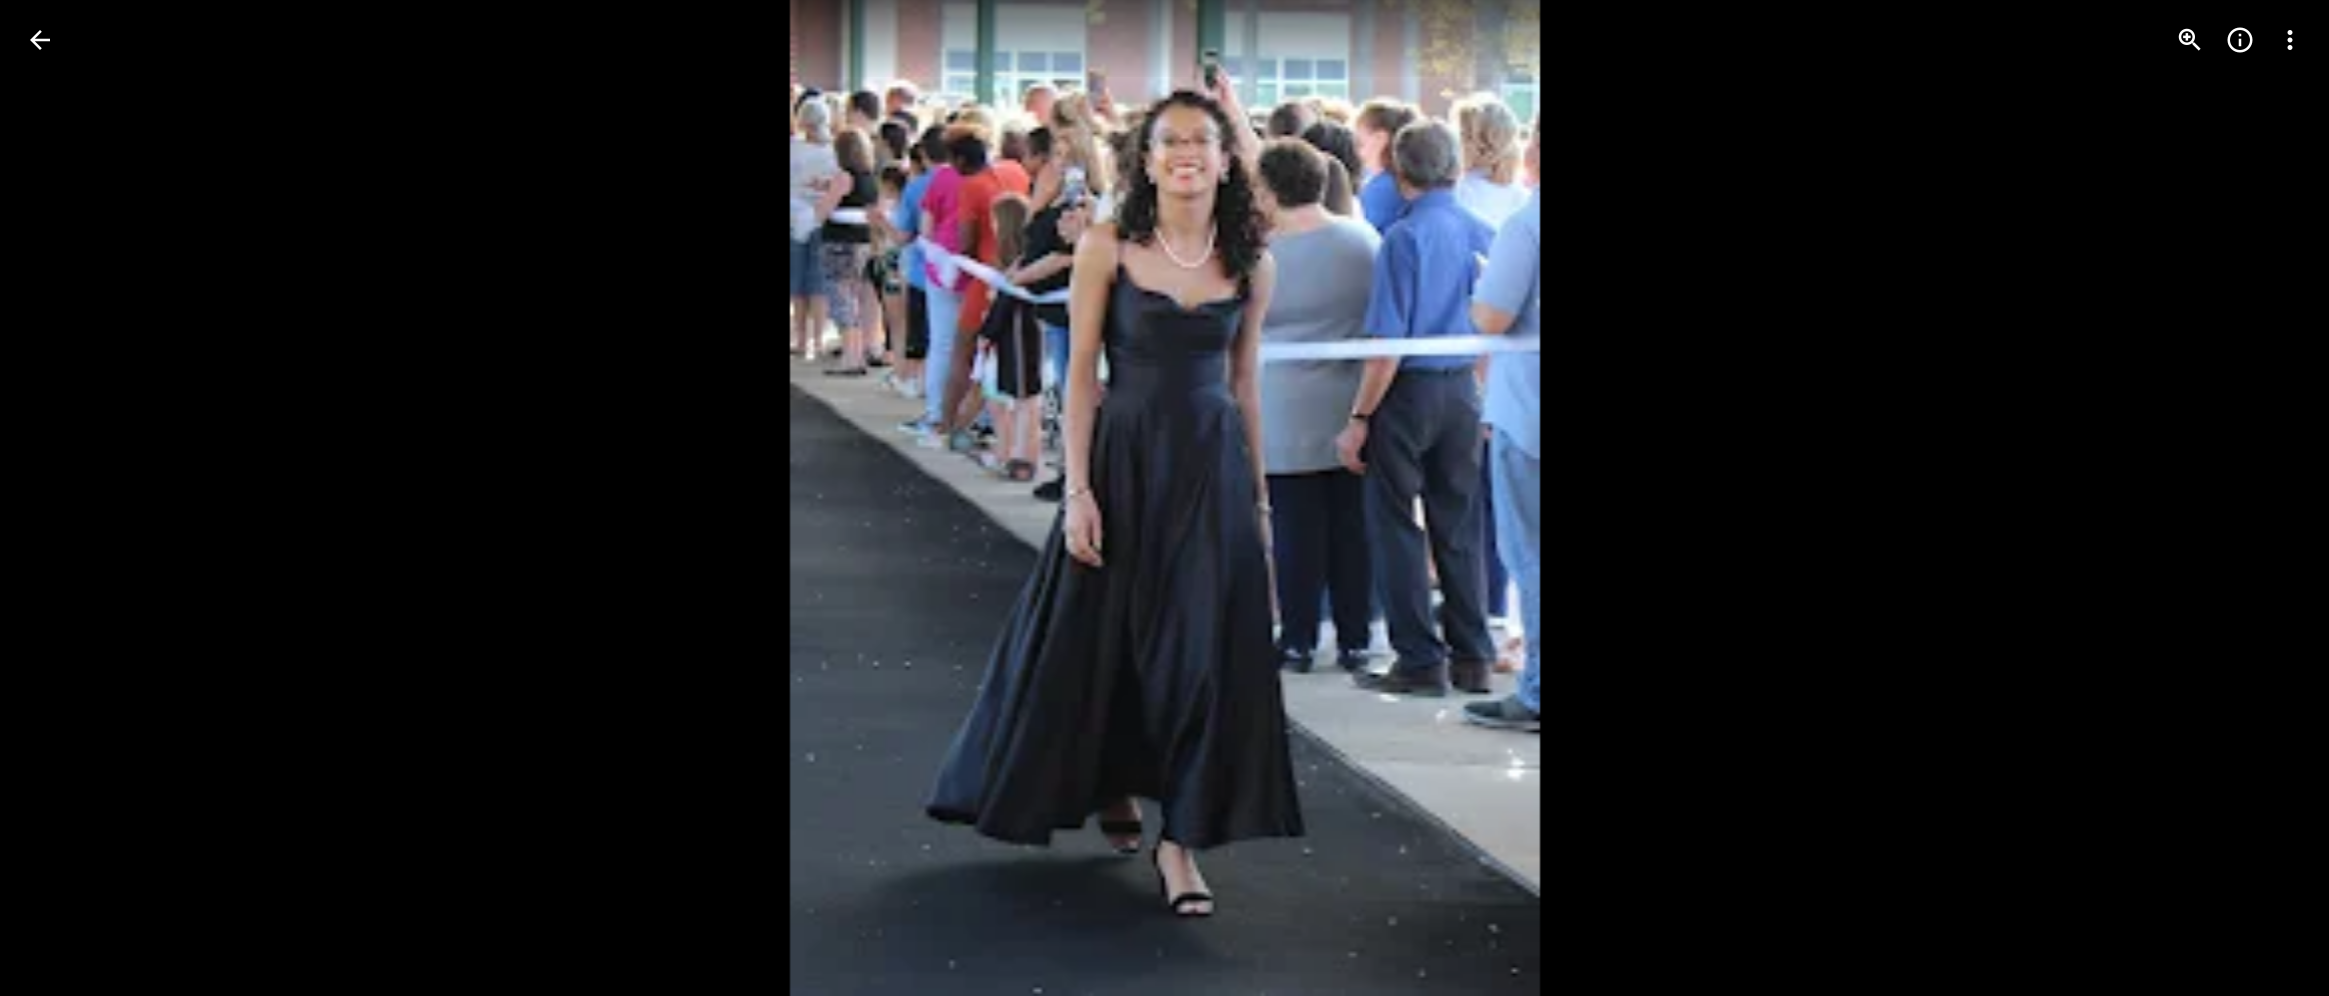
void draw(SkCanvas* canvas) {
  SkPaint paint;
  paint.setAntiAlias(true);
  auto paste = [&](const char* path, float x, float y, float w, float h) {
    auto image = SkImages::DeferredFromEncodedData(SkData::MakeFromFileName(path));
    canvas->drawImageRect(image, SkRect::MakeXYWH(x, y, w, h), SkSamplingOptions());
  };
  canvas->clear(0xff000000);
  paste("img/5.png", 789, 0, 752, 996);
  {
    const SkColor colors[] = {0x99000000, 0x00000000};
    const float stops[] = {0, 1};
    const SkPoint ends[] = {{1165, 0}, {1165, 80}};
    paint.setShader(SkGradientShader::MakeLinear(ends, colors, stops, 2, SkTileMode::kClamp));
    paint.setAlpha(255);
  }
  canvas->drawRect(SkRect::MakeXYWH(789, 0, 752, 77), paint);
  paste("img/1.png", 30, 30, 20, 20);
  paste("img/2.png", 2178, 28, 23, 23);
  paste("img/3.png", 2227, 27, 26, 26);
  paste("img/4.png", 2287, 30, 6, 20);
}
